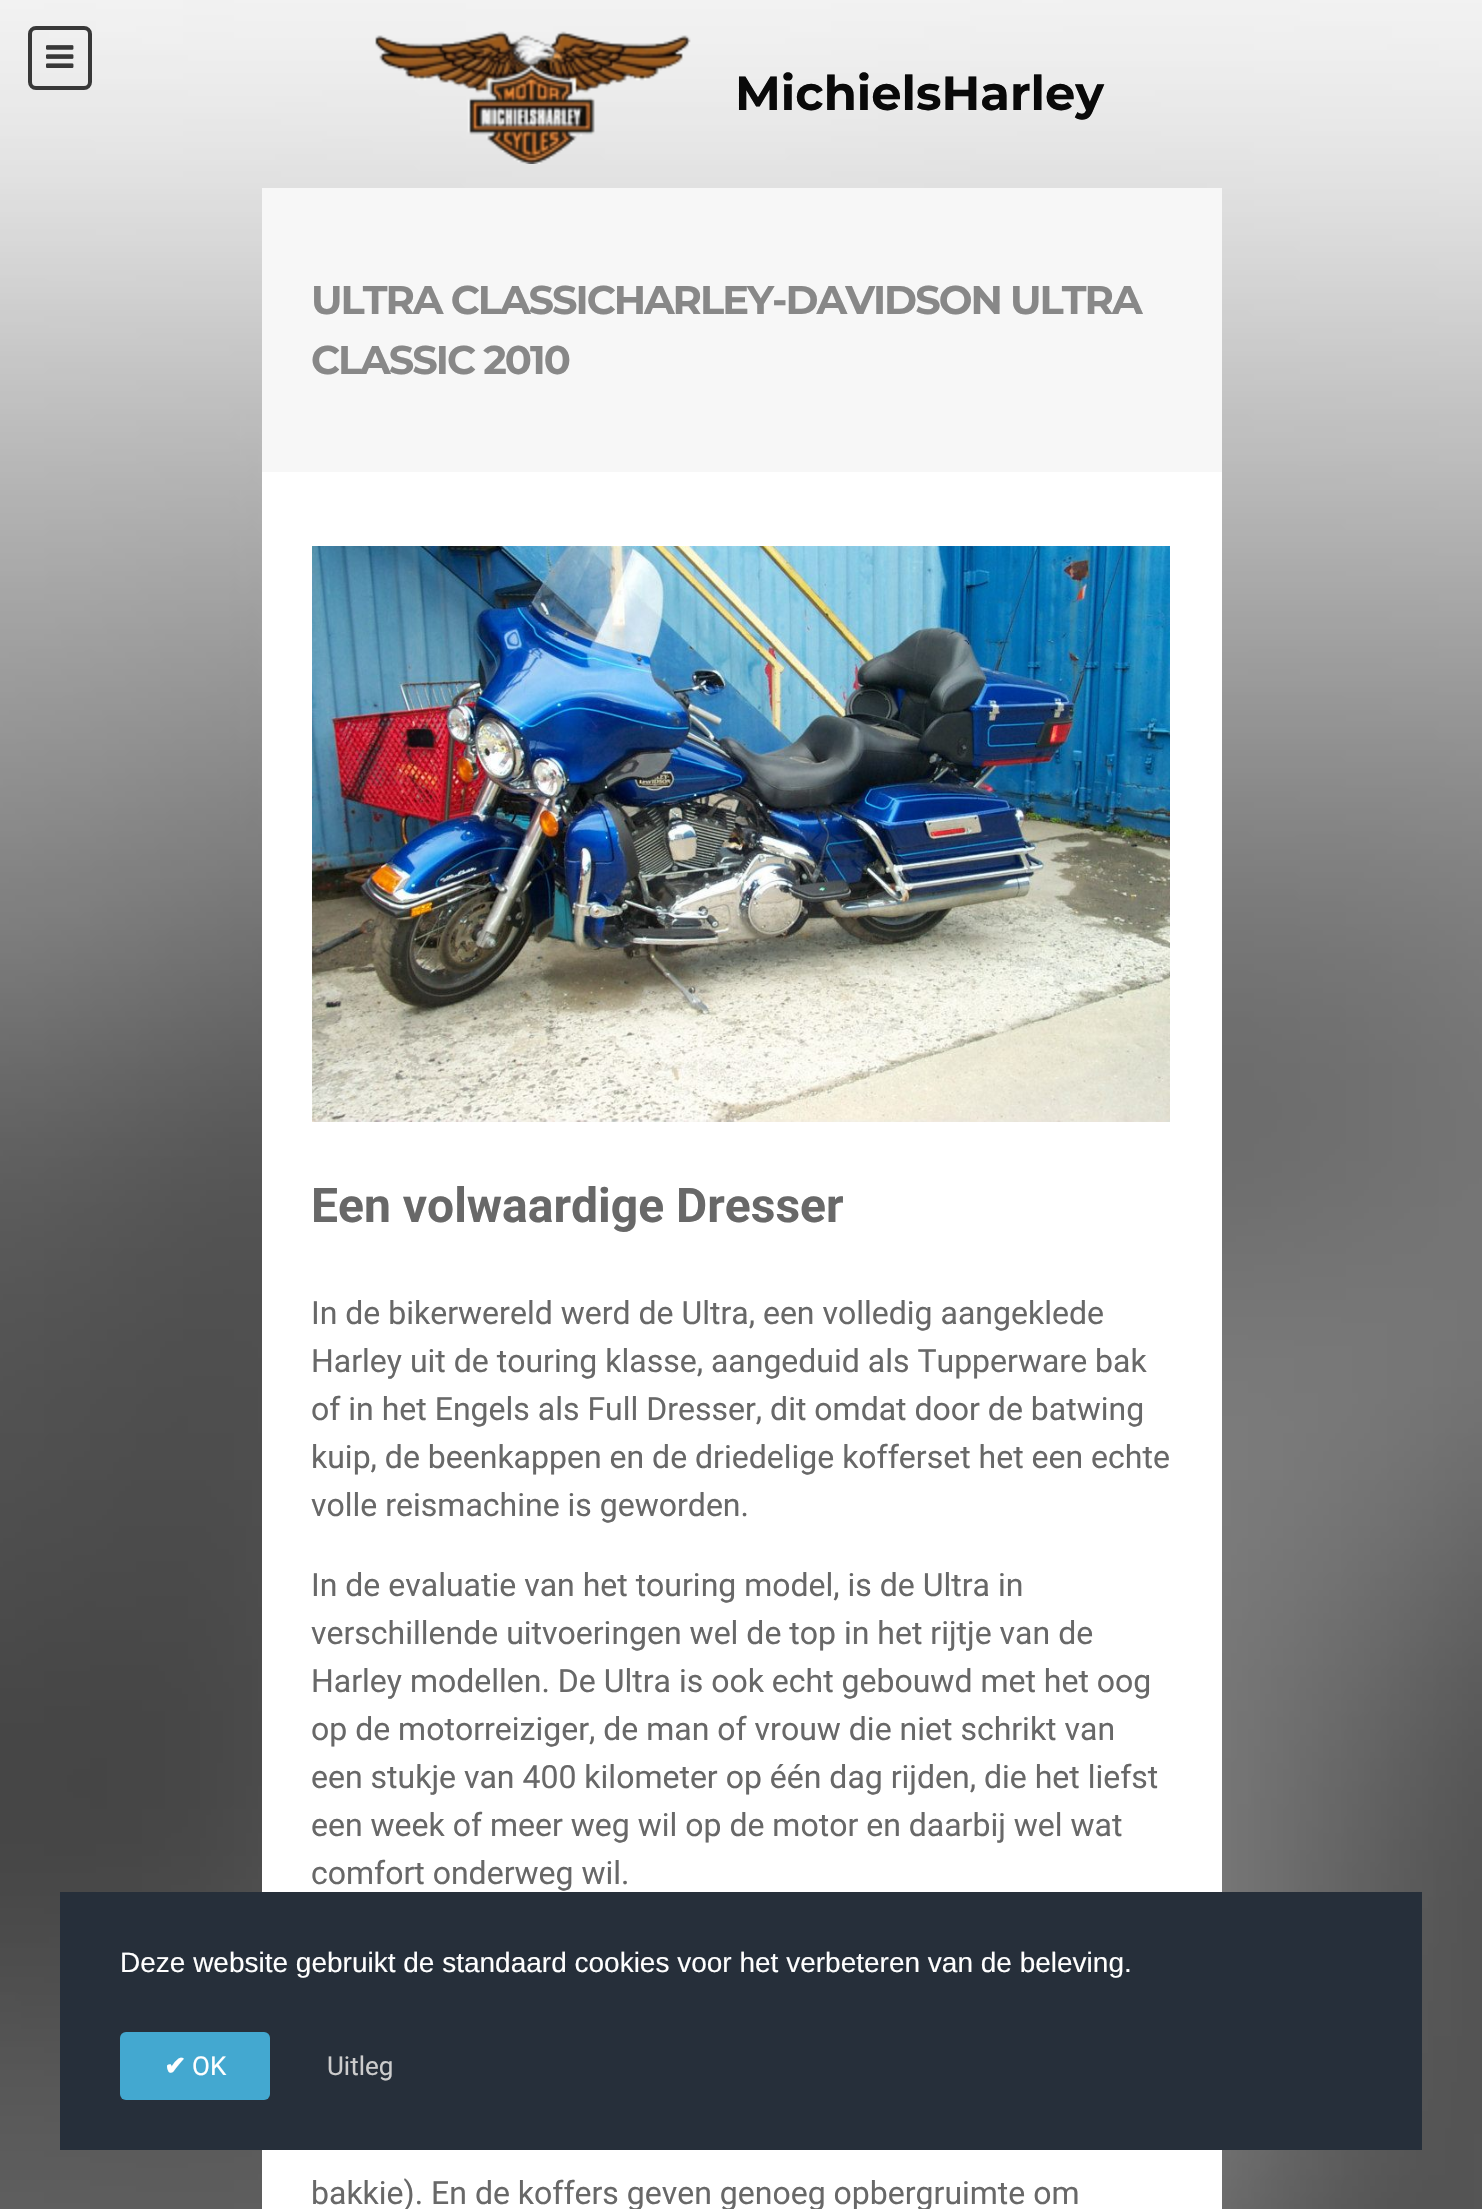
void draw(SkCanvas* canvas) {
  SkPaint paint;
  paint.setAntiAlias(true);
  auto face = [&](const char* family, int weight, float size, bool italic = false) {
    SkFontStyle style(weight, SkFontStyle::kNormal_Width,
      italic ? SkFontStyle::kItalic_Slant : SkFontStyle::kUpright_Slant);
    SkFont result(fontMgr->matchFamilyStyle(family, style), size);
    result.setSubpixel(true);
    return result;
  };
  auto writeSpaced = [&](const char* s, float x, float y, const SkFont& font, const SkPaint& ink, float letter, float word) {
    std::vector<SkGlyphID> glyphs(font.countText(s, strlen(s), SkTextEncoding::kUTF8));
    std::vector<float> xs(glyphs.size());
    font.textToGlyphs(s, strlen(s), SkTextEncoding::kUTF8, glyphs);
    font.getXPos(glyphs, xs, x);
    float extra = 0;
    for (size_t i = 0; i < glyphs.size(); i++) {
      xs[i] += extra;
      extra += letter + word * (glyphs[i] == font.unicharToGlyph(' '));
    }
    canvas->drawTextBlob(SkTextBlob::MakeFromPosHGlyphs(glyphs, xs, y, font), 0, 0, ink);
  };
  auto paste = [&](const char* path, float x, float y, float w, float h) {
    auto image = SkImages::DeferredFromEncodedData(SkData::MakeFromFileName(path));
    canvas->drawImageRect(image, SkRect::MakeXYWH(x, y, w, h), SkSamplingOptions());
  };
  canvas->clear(0xffffffff);
  paste("img/1.png", 0, 0, 1482, 2209);
  paint.setStroke(true);
  paint.setStrokeWidth(4);
  paint.setColor(0xff383838);
  canvas->drawRoundRect(SkRect::MakeXYWH(30, 28, 60, 60), 6, 6, paint);
  paste("img/2.png", 46, 45, 28, 23);
  paste("img/3.png", 375, 31, 316, 133);
  paint.setStroke(false);
  paint.setColor(0xfff7f7f7);
  canvas->drawRect(SkRect::MakeXYWH(262, 188, 960, 284), paint);
  paint.setColor(0xffffffff);
  canvas->drawRect(SkRect::MakeXYWH(262, 472, 960, 1737), paint);
  paste("img/4.png", 312, 546, 858, 576);
  paint.setColor(0xff262f3a);
  canvas->drawRect(SkRect::MakeXYWH(60, 1892, 1362, 258), paint);
  paint.setColor(0xff43a8d0);
  canvas->drawRoundRect(SkRect::MakeXYWH(120, 2032, 150, 68), 6, 6, paint);
  auto f0 = face("Montserrat", 700, 48);
  paint.setColor(0xff090909);
  canvas->drawString("MichielsHarley", 735, 110, f0, paint);
  auto f1 = face("Montserrat", 700, 40);
  paint.setColor(0xff888888);
  writeSpaced("ULTRA CLASSICHARLEY-DAVIDSON ULTRA", 311, 314, f1, paint, -2, 0);
  writeSpaced("CLASSIC 2010", 311, 374, f1, paint, -2, 0);
  auto f2 = face("Roboto", 700, 48);
  paint.setColor(0xff686868);
  canvas->drawString("Een volwaardige Dresser", 311, 1222, f2, paint);
  auto f3 = face("Roboto", 400, 32);
  {
    const struct { const char* s; float x, y; } items[] = {
      {"In de bikerwereld werd de Ultra, een volledig aangeklede", 311, 1324},
      {"Harley uit de touring klasse, aangeduid als Tupperware bak", 311, 1372},
      {"of in het Engels als Full Dresser, dit omdat door de batwing", 311, 1420},
      {"kuip, de beenkappen en de driedelige kofferset het een echte", 311, 1468},
      {"volle reismachine is geworden.", 311, 1516},
      {"In de evaluatie van het touring model, is de Ultra in", 311, 1596},
      {"verschillende uitvoeringen wel de top in het rijtje van de", 311, 1644},
      {"Harley modellen. De Ultra is ook echt gebouwd met het oog", 311, 1692},
      {"op de motorreiziger, de man of vrouw die niet schrikt van", 311, 1740},
      {"een stukje van 400 kilometer op één dag rijden, die het liefst", 311, 1788},
      {"een week of meer weg wil op de motor en daarbij wel wat", 311, 1836},
      {"comfort onderweg wil.", 311, 1884},
      {"bakkie). En de koffers geven genoeg opbergruimte om", 311, 2204},
    };
    for (auto [s, x, y] : items) {
      canvas->drawString(s, x, y, f3, paint);
    }
  }
  auto f4 = face("Liberation Sans", 400, 28);
  paint.setColor(0xffffffff);
  canvas->drawString("Deze website gebruikt de standaard cookies voor het verbeteren van de beleving.", 120, 1972, f4, paint);
  auto f5 = face("DejaVu Sans", 700, 26);
  canvas->drawString("✔", 164, 2075, f5, paint);
  auto f6 = face("Roboto", 400, 26);
  canvas->drawString("OK", 192, 2075, f6, paint);
  paint.setColor(0xffcccccc);
  canvas->drawString("Uitleg", 327, 2075, f6, paint);
}
